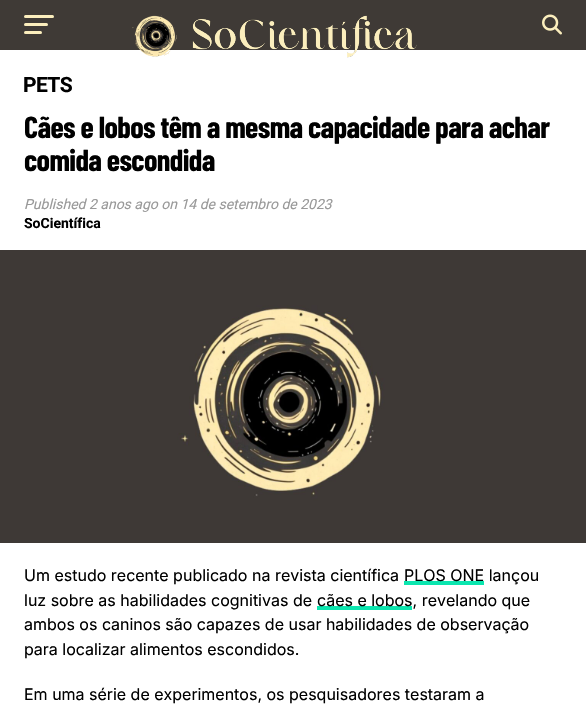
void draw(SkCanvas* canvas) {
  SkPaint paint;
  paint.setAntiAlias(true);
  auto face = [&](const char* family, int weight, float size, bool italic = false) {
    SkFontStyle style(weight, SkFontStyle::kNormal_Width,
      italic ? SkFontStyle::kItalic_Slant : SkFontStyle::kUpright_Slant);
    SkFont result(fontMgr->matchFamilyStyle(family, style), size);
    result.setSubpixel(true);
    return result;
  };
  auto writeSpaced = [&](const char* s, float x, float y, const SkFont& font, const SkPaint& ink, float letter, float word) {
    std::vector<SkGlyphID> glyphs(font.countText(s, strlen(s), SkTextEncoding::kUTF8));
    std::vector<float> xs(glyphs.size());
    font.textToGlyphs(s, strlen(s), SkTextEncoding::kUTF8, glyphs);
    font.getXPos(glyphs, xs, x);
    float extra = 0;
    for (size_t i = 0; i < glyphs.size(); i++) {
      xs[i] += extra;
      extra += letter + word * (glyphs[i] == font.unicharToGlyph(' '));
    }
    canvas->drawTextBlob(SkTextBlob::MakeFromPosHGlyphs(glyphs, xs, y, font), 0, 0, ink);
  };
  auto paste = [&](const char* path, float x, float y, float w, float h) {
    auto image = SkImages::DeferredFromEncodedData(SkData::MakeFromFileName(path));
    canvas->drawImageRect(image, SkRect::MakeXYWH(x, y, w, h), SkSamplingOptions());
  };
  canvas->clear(0xffffffff);
  paint.setColor(0xff3f3a36);
  canvas->drawRect(SkRect::MakeXYWH(0, 0, 586, 50), paint);
  paint.setColor(0xfffbeebd);
  canvas->drawRoundRect(SkRect::MakeXYWH(24, 15, 30, 3), 1.5f, 1.5f, paint);
  canvas->drawRoundRect(SkRect::MakeXYWH(24, 23, 24, 3), 1.5f, 1.5f, paint);
  canvas->drawRoundRect(SkRect::MakeXYWH(24, 31, 18, 3), 1.5f, 1.5f, paint);
  paste("img/1.png", 132, 15, 285, 43);
  paste("img/2.png", 542, 14, 20, 21);
  paste("img/3.png", 0, 250, 586, 293);
  paint.setColor(0xff0be6af);
  canvas->drawRect(SkRect::MakeXYWH(404, 581, 80, 4), paint);
  canvas->drawRect(SkRect::MakeXYWH(317, 606, 95, 4), paint);
  auto f0 = face("Roboto", 700, 21);
  paint.setColor(0xff000000);
  writeSpaced("PETS", 23, 92, f0, paint, -0.5f, 0);
  auto f1 = face("Barlow Condensed", 700, 30.4f);
  writeSpaced("Cães e lobos têm a mesma capacidade para achar", 24, 138, f1, paint, -0.6f, 0);
  writeSpaced("comida escondida", 24, 171, f1, paint, -0.6f, 0);
  auto f2 = face("Roboto", 400, 14, true);
  paint.setColor(0xff999999);
  canvas->drawString("Published 2 anos ago on 14 de setembro de 2023", 24, 209, f2, paint);
  auto f3 = face("Roboto", 700, 14);
  paint.setColor(0xff000000);
  canvas->drawString("SoCientífica", 24, 228, f3, paint);
  auto f4 = face("Inter", 400, 16);
  {
    const struct { const char* s; float x, y; } items[] = {
      {"Um estudo recente publicado na revista científica", 24, 581},
      {"PLOS ONE lançou", 404, 581},
      {"luz sobre as habilidades cognitivas de", 24, 606},
      {"cães e lobos, revelando que", 317, 606},
      {"ambos os caninos são capazes de usar habilidades de observação", 24, 630},
      {"para localizar alimentos escondidos.", 24, 655},
      {"Em uma série de experimentos, os pesquisadores testaram a", 24, 700},
    };
    for (auto [s, x, y] : items) {
      canvas->drawString(s, x, y, f4, paint);
    }
  }
}
